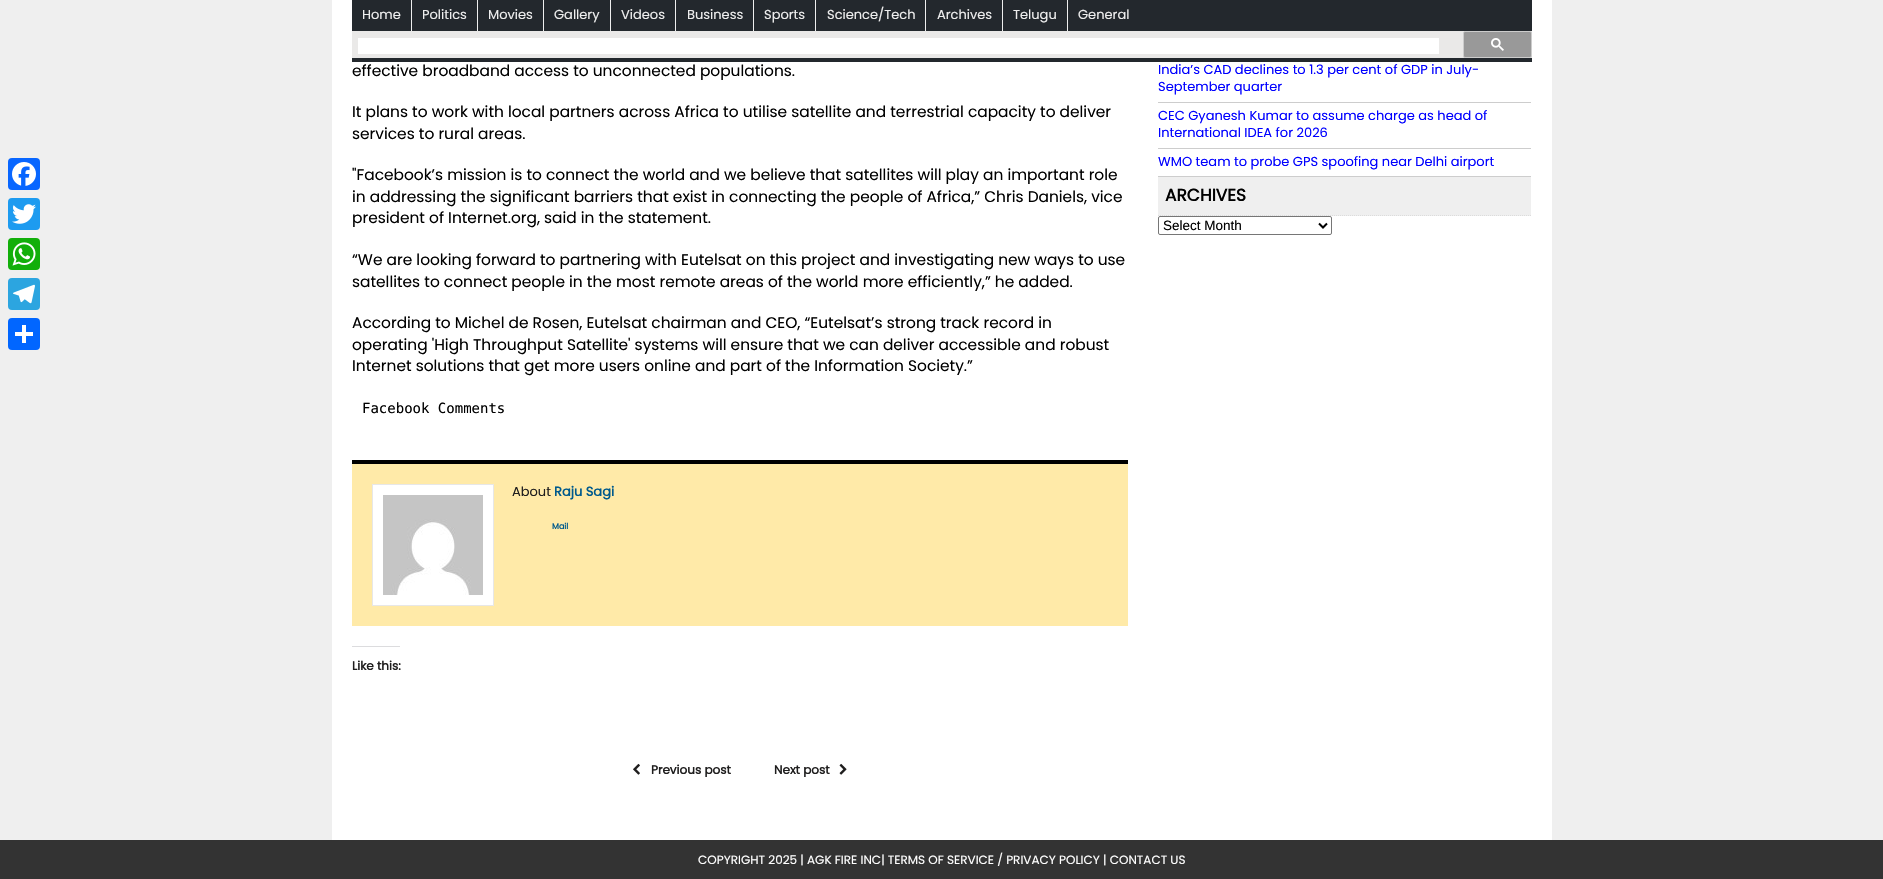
void draw(SkCanvas* canvas) {
  SkPaint paint;
  paint.setAntiAlias(true);
  auto face = [&](const char* family, int weight, float size, bool italic = false) {
    SkFontStyle style(weight, SkFontStyle::kNormal_Width,
      italic ? SkFontStyle::kItalic_Slant : SkFontStyle::kUpright_Slant);
    SkFont result(fontMgr->matchFamilyStyle(family, style), size);
    result.setSubpixel(true);
    return result;
  };
  auto paste = [&](const char* path, float x, float y, float w, float h) {
    auto image = SkImages::DeferredFromEncodedData(SkData::MakeFromFileName(path));
    canvas->drawImageRect(image, SkRect::MakeXYWH(x, y, w, h), SkSamplingOptions());
  };
  auto shape = [&](const char* data, bool evenOdd = false) {
    SkPath result = *SkParsePath::FromSVGString(data);
    if (evenOdd) result.setFillType(SkPathFillType::kEvenOdd);
    return result;
  };
  canvas->clear(0xffefefef);
  paint.setColor(0xff0866ff);
  canvas->drawRoundRect(SkRect::MakeXYWH(8, 158, 32, 32), 4, 4, paint);
  paste("img/1.png", 12, 162, 24, 24);
  paint.setColor(0xff1d9bf0);
  canvas->drawRoundRect(SkRect::MakeXYWH(8, 198, 32, 32), 4, 4, paint);
  paste("img/2.png", 12, 204, 24, 20);
  paint.setColor(0xff12af0a);
  canvas->drawRoundRect(SkRect::MakeXYWH(8, 238, 32, 32), 4, 4, paint);
  paste("img/3.png", 12, 242, 24, 24);
  paint.setColor(0xff2ca5e0);
  canvas->drawRoundRect(SkRect::MakeXYWH(8, 278, 32, 32), 4, 4, paint);
  paste("img/4.png", 13, 284, 22, 20);
  paint.setColor(0xff0166ff);
  canvas->drawRoundRect(SkRect::MakeXYWH(8, 318, 32, 32), 4, 4, paint);
  {
    const struct { float x, y, w, h; SkColor color; } items[] = {
      {22, 325, 4, 18, 0xffffffff},
      {15, 332, 18, 4, 0xffffffff},
      {332, 0, 1220, 840, 0xffffffff},
      {352, 0, 1180, 62, 0xff23282d},
      {411, 0, 1, 31, 0xffeeeeee},
      {477, 0, 1, 31, 0xffeeeeee},
      {543, 0, 1, 31, 0xffeeeeee},
      {610, 0, 1, 31, 0xffeeeeee},
      {675, 0, 1, 31, 0xffeeeeee},
      {753, 0, 1, 31, 0xffeeeeee},
      {815, 0, 1, 31, 0xffeeeeee},
      {925, 0, 1, 31, 0xffeeeeee},
      {1002, 0, 1, 31, 0xffeeeeee},
      {1067, 0, 1, 31, 0xffeeeeee},
      {352, 31, 1180, 27, 0xffeae9e8},
      {358, 38, 1081, 16, 0xffffffff},
    };
    for (auto [x, y, w, h, color] : items) {
      paint.setColor(color);
      canvas->drawRect(SkRect::MakeXYWH(x, y, w, h), paint);
    }
  }
  paint.setColor(0xff999999);
  canvas->drawRoundRect(SkRect::MakeXYWH(1463.5f, 31.5f, 68, 26), 1.5f, 1.5f, paint);
  paint.setStroke(true);
  paint.setStrokeWidth(1);
  paint.setColor(0xffcccccc);
  canvas->drawRoundRect(SkRect::MakeXYWH(1463.5f, 31.5f, 68, 26), 1.5f, 1.5f, paint);
  paste("img/5.png", 1491, 38, 13, 13);
  paint.setStroke(false);
  paint.setColor(0xffffeaa8);
  canvas->drawRect(SkRect::MakeXYWH(352, 464, 776, 162), paint);
  paint.setColor(0xff000000);
  canvas->drawRect(SkRect::MakeXYWH(352, 460, 776, 4), paint);
  paint.setColor(0xffffffff);
  canvas->drawRect(SkRect::MakeXYWH(372.5f, 484.5f, 121, 121), paint);
  paint.setStroke(true);
  paint.setColor(0xffe7e7e7);
  canvas->drawRect(SkRect::MakeXYWH(372.5f, 484.5f, 121, 121), paint);
  paste("img/6.png", 383, 495, 100, 100);
  paint.setStroke(false);
  paint.setColor(0xffdcdcde);
  canvas->drawRect(SkRect::MakeXYWH(352, 646, 48, 1), paint);
  paste("img/7.png", 633, 763, 7, 12);
  paste("img/8.png", 839, 763, 8, 12);
  {
    const struct { float x, y, w, h; SkColor color; } items[] = {
      {1158, 102, 373, 1, 0xffcdcdcd},
      {1158, 148, 373, 1, 0xffcdcdcd},
      {1158, 176, 373, 1, 0xffcdcdcd},
      {1158, 177, 373, 39, 0xffefefef},
    };
    for (auto [x, y, w, h, color] : items) {
      paint.setColor(color);
      canvas->drawRect(SkRect::MakeXYWH(x, y, w, h), paint);
    }
  }
  paint.setStroke(true);
  paint.setColor(0xffdcdcdc);
  paint.setPathEffect(SkDashPathEffect::Make({{1, 1}}, 0));
  canvas->drawPath(shape("M1158 215.5H1531"), paint);
  paint.setPathEffect(nullptr);
  paint.setColor(0xff767676);
  canvas->drawRoundRect(SkRect::MakeXYWH(1158.5f, 216.5f, 173, 18), 1.5f, 1.5f, paint);
  paint.setStrokeWidth(2);
  paint.setColor(0xff000000);
  canvas->drawPath(shape("M1319 223.5L1323 227.5L1327 223.5"), paint);
  paint.setStroke(false);
  paint.setColor(0xff333333);
  canvas->drawRect(SkRect::MakeXYWH(0, 840, 1883, 39), paint);
  auto f0 = face("Poppins", 400, 13);
  paint.setColor(0xffeeeeee);
  {
    const struct { const char* s; float x, y; } items[] = {
      {"Home", 362, 19},
      {"Politics", 422, 19},
      {"Movies", 488, 19},
      {"Gallery", 554, 19},
      {"Videos", 621, 19},
      {"Business", 687, 19},
      {"Sports", 764, 19},
      {"Science/Tech", 827, 19},
      {"Archives", 937, 19},
      {"Telugu", 1013, 19},
      {"General", 1078, 19},
    };
    for (auto [s, x, y] : items) {
      canvas->drawString(s, x, y, f0, paint);
    }
  }
  auto f1 = face("Poppins", 400, 15.4f);
  paint.setColor(0xff000000);
  {
    const struct { const char* s; float x, y; } items[] = {
      {"effective broadband access to unconnected populations.", 352, 76},
      {"It plans to work with local partners across Africa to utilise satellite and terrestrial capacity to deliver", 352, 117},
      {"services to rural areas.", 352, 139},
      {"\"Facebook’s mission is to connect the world and we believe that satellites will play an important role", 352, 180},
      {"in addressing the significant barriers that exist in connecting the people of Africa,” Chris Daniels, vice", 352, 202},
      {"president of Internet.org, said in the statement.", 352, 223},
      {"“We are looking forward to partnering with Eutelsat on this project and investigating new ways to use", 352, 265},
      {"satellites to connect people in the most remote areas of the world more efficiently,” he added.", 352, 287},
      {"According to Michel de Rosen, Eutelsat chairman and CEO, “Eutelsat’s strong track record in", 352, 328},
      {"operating 'High Throughput Satellite' systems will ensure that we can deliver accessible and robust", 352, 350},
      {"Internet solutions that get more users online and part of the Information Society.”", 352, 371},
    };
    for (auto [s, x, y] : items) {
      canvas->drawString(s, x, y, f1, paint);
    }
  }
  auto f2 = face("DejaVu Sans Mono", 400, 14);
  canvas->drawString("Facebook Comments", 362, 413, f2, paint);
  paint.setColor(0xff1f1e1e);
  canvas->drawString("About", 512, 496, f0, paint);
  auto f3 = face("Poppins", 700, 13);
  paint.setColor(0xff005a8c);
  canvas->drawString("Raju Sagi", 554, 496, f3, paint);
  auto f4 = face("Poppins", 700, 8);
  canvas->drawString("Mail", 552, 529, f4, paint);
  auto f5 = face("Poppins", 700, 12);
  paint.setColor(0xff1f1e1e);
  {
    const struct { const char* s; float x, y; } items[] = {
      {"Like this:", 352, 670},
      {"Previous post", 651, 774},
      {"Next post", 774, 774},
    };
    for (auto [s, x, y] : items) {
      canvas->drawString(s, x, y, f5, paint);
    }
  }
  paint.setColor(0xff0000ff);
  {
    const struct { const char* s; float x, y; } items[] = {
      {"India’s CAD declines to 1.3 per cent of GDP in July-", 1158, 74},
      {"September quarter", 1158, 91},
      {"CEC Gyanesh Kumar to assume charge as head of", 1158, 120},
      {"International IDEA for 2026", 1158, 137},
      {"WMO team to probe GPS spoofing near Delhi airport", 1158, 166},
    };
    for (auto [s, x, y] : items) {
      canvas->drawString(s, x, y, f0, paint);
    }
  }
  auto f6 = face("Poppins", 700, 17);
  paint.setColor(0xff000000);
  canvas->drawString("ARCHIVES", 1165, 201, f6, paint);
  auto f7 = face("Liberation Sans", 400, 13.5f);
  canvas->drawString("Select Month", 1163, 230, f7, paint);
  auto f8 = face("Poppins", 400, 12);
  paint.setColor(0xffffffff);
  canvas->drawString("COPYRIGHT 2025 | AGK FIRE INC| TERMS OF SERVICE / PRIVACY POLICY | CONTACT US", 698, 864, f8, paint);
}
